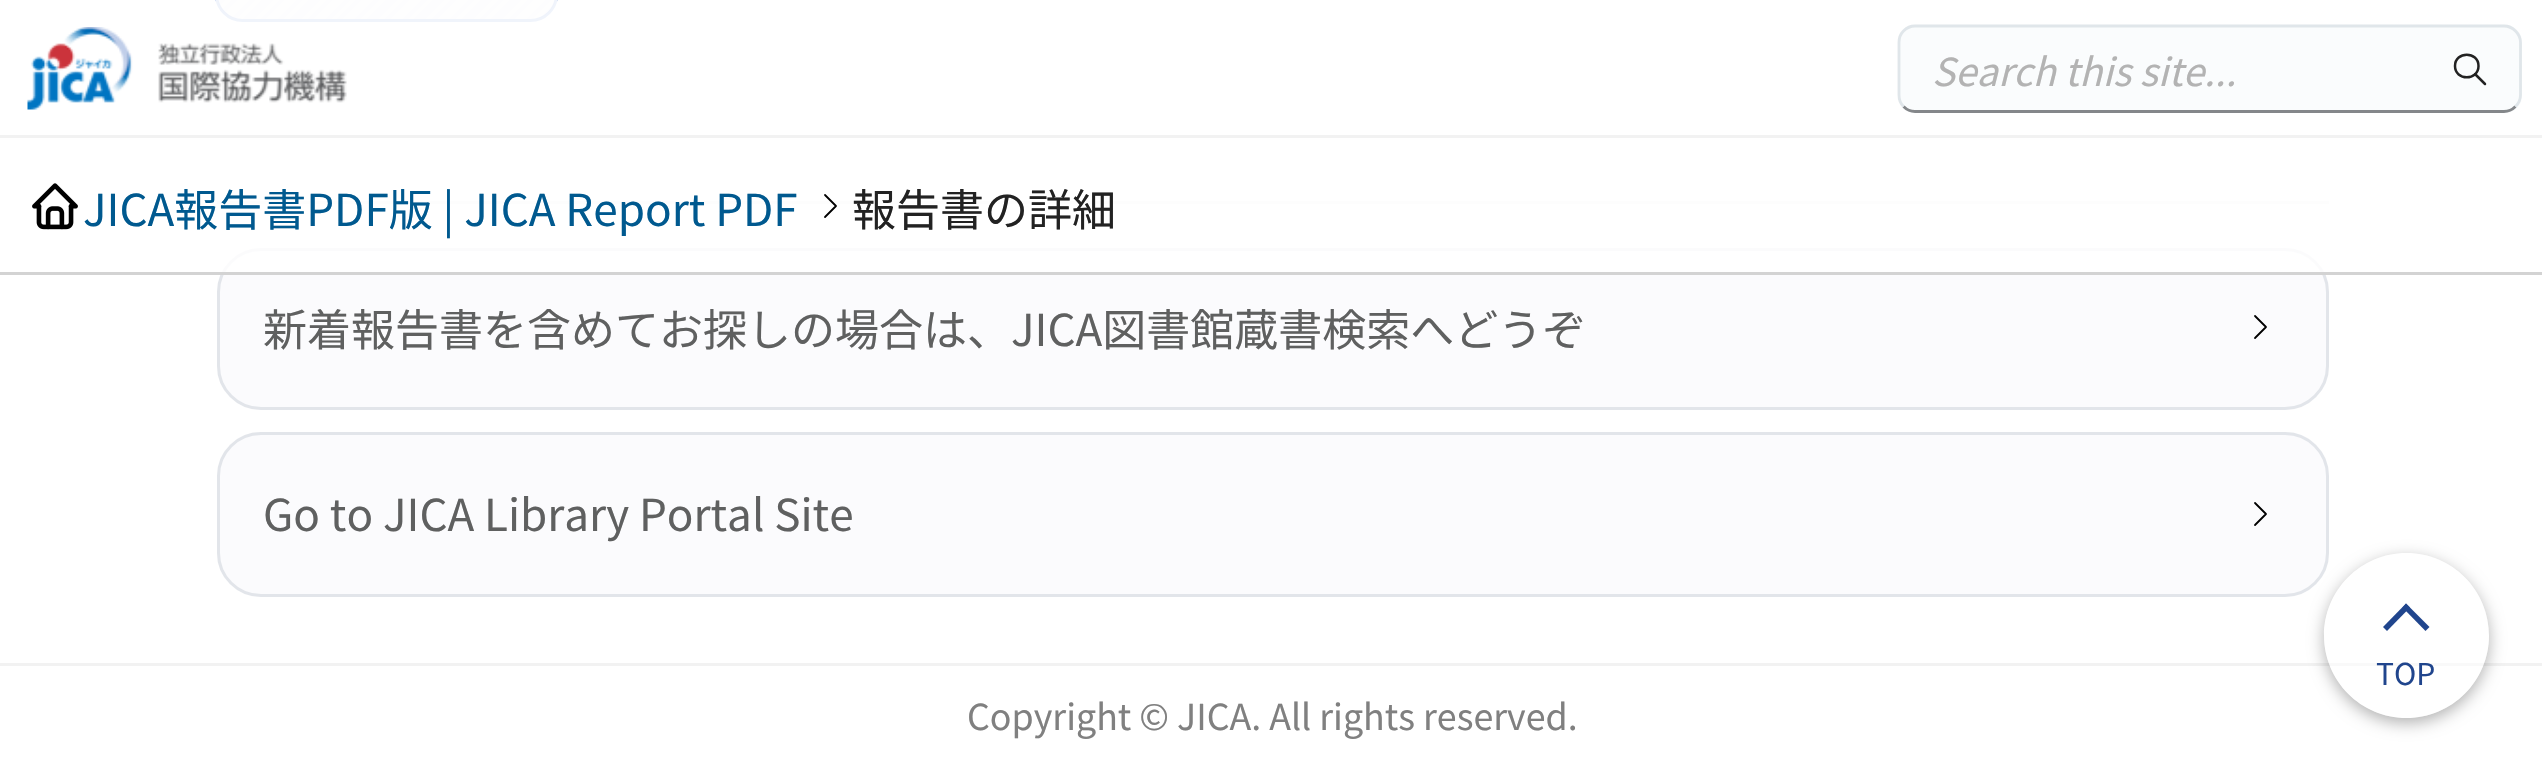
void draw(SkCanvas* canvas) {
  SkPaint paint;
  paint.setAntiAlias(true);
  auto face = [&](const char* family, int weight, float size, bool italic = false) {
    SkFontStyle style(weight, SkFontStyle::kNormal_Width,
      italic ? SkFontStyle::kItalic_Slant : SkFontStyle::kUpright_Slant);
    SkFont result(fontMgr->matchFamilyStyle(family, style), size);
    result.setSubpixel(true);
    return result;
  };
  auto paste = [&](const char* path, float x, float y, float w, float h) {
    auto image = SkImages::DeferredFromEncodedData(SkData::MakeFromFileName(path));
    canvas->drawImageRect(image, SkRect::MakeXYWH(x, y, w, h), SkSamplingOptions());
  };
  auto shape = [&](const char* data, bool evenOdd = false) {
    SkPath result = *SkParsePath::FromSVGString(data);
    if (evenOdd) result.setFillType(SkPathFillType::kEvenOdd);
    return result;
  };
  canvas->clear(0xffffffff);
  {
    const SkColor colors[] = {0xfff5f5f5, 0xfff5f5f5, 0xfff0f0f8, 0xfff0f0f8, 0xfff5f5f5, 0xfff5f5f5, 0xfff0f0f8, 0xfff0f0f8, 0xfff5f5f5, 0xfff5f5f5, 0xfff0f0f8, 0xfff0f0f8, 0xfff5f5f5, 0xfff5f5f5, 0xfff0f0f8, 0xfff0f0f8, 0xfff5f5f5, 0xfff5f5f5, 0xfff0f0f8, 0xfff0f0f8, 0xfff5f5f5, 0xfff5f5f5, 0xfff0f0f8, 0xfff0f0f8, 0xfff5f5f5, 0xfff5f5f5, 0xfff0f0f8, 0xfff0f0f8, 0xfff5f5f5, 0xfff5f5f5, 0xfff0f0f8, 0xfff0f0f8, 0xfff5f5f5, 0xfff5f5f5, 0xfff0f0f8, 0xfff0f0f8, 0xfff5f5f5, 0xfff5f5f5, 0xfff0f0f8, 0xfff0f0f8, 0xfff5f5f5, 0xfff5f5f5, 0xfff0f0f8, 0xfff0f0f8, 0xfff5f5f5, 0xfff5f5f5, 0xfff0f0f8, 0xfff0f0f8, 0xfff5f5f5, 0xfff5f5f5, 0xfff0f0f8, 0xfff0f0f8, 0xfff5f5f5, 0xfff5f5f5, 0xfff0f0f8, 0xfff0f0f8, 0xfff5f5f5, 0xfff5f5f5, 0xfff0f0f8, 0xfff0f0f8, 0xfff5f5f5, 0xfff5f5f5, 0xfff0f0f8, 0xfff0f0f8, 0xfff5f5f5, 0xfff5f5f5, 0xfff0f0f8, 0xfff0f0f8, 0xfff5f5f5, 0xfff5f5f5, 0xfff0f0f8, 0xfff0f0f8, 0xfff5f5f5, 0xfff5f5f5, 0xfff0f0f8, 0xfff0f0f8, 0xfff5f5f5, 0xfff5f5f5, 0xfff0f0f8, 0xfff0f0f8, 0xfff5f5f5, 0xfff5f5f5, 0xfff0f0f8, 0xfff0f0f8, 0xfff5f5f5, 0xfff5f5f5, 0xfff0f0f8, 0xfff0f0f8, 0xfff5f5f5, 0xfff5f5f5, 0xfff0f0f8, 0xfff0f0f8, 0xfff5f5f5, 0xfff5f5f5, 0xfff0f0f8, 0xfff0f0f8, 0xfff5f5f5, 0xfff5f5f5, 0xfff0f0f8, 0xfff0f0f8, 0xfff5f5f5, 0xfff5f5f5, 0xfff0f0f8, 0xfff0f0f8, 0xfff5f5f5, 0xfff5f5f5, 0xfff0f0f8, 0xfff0f0f8, 0xfff5f5f5, 0xfff5f5f5, 0xfff0f0f8, 0xfff0f0f8, 0xfff5f5f5, 0xfff5f5f5, 0xfff0f0f8, 0xfff0f0f8, 0xfff5f5f5, 0xfff5f5f5, 0xfff0f0f8, 0xfff0f0f8, 0xfff5f5f5, 0xfff5f5f5, 0xfff0f0f8, 0xfff0f0f8, 0xfff5f5f5, 0xfff5f5f5, 0xfff0f0f8, 0xfff0f0f8, 0xfff5f5f5, 0xfff5f5f5, 0xfff0f0f8, 0xfff0f0f8, 0xfff5f5f5, 0xfff5f5f5, 0xfff0f0f8, 0xfff0f0f8, 0xfff5f5f5, 0xfff5f5f5, 0xfff0f0f8, 0xfff0f0f8, 0xfff5f5f5, 0xfff5f5f5, 0xfff0f0f8, 0xfff0f0f8, 0xfff5f5f5, 0xfff5f5f5, 0xfff0f0f8, 0xfff0f0f8, 0xfff5f5f5, 0xfff5f5f5, 0xfff0f0f8, 0xfff0f0f8};
    const float stops[] = {0, 0.01f, 0.01f, 0.03f, 0.03f, 0.04f, 0.04f, 0.05f, 0.05f, 0.07f, 0.07f, 0.08f, 0.08f, 0.09f, 0.09f, 0.11f, 0.11f, 0.12f, 0.12f, 0.13f, 0.13f, 0.14f, 0.14f, 0.16f, 0.16f, 0.17f, 0.17f, 0.18f, 0.18f, 0.2f, 0.2f, 0.21f, 0.21f, 0.22f, 0.22f, 0.24f, 0.24f, 0.25f, 0.25f, 0.26f, 0.26f, 0.28f, 0.28f, 0.29f, 0.29f, 0.3f, 0.3f, 0.32f, 0.32f, 0.33f, 0.33f, 0.34f, 0.34f, 0.36f, 0.36f, 0.37f, 0.37f, 0.38f, 0.38f, 0.39f, 0.39f, 0.41f, 0.41f, 0.42f, 0.42f, 0.43f, 0.43f, 0.45f, 0.45f, 0.46f, 0.46f, 0.47f, 0.47f, 0.49f, 0.49f, 0.5f, 0.5f, 0.51f, 0.51f, 0.53f, 0.53f, 0.54f, 0.54f, 0.55f, 0.55f, 0.57f, 0.57f, 0.58f, 0.58f, 0.59f, 0.59f, 0.61f, 0.61f, 0.62f, 0.62f, 0.63f, 0.63f, 0.64f, 0.64f, 0.66f, 0.66f, 0.67f, 0.67f, 0.68f, 0.68f, 0.7f, 0.7f, 0.71f, 0.71f, 0.72f, 0.72f, 0.74f, 0.74f, 0.75f, 0.75f, 0.76f, 0.76f, 0.78f, 0.78f, 0.79f, 0.79f, 0.8f, 0.8f, 0.82f, 0.82f, 0.83f, 0.83f, 0.84f, 0.84f, 0.86f, 0.86f, 0.87f, 0.87f, 0.88f, 0.88f, 0.89f, 0.89f, 0.91f, 0.91f, 0.92f, 0.92f, 0.93f, 0.93f, 0.95f, 0.95f, 0.96f, 0.96f, 0.97f, 0.97f, 0.99f, 0.99f, 1};
    const SkPoint ends[] = {{533, 42}, {237, -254}};
    paint.setShader(SkGradientShader::MakeLinear(ends, colors, stops, 152, SkTileMode::kClamp));
    paint.setAlpha(255);
  }
  canvas->drawRoundRect(SkRect::MakeXYWH(217, -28, 339, 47), 28, 28, paint);
  paint.setStroke(true);
  paint.setStrokeWidth(3);
  paint.setShader(nullptr);
  paint.setColor(0x803264c9);
  canvas->drawRoundRect(SkRect::MakeXYWH(216.5f, -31.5f, 340, 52), 28.5f, 28.5f, paint);
  paint.setStroke(false);
  paint.setColor(0xd9ffffff);
  canvas->drawRect(SkRect::MakeXYWH(216, 0, 341, 22), paint);
  paint.setColor(0x0d000000);
  canvas->drawRect(SkRect::MakeXYWH(0, 135, 2542, 3), paint);
  paste("img/1.png", 27, 27, 320, 83);
  paint.setColor(0xfffafcfd);
  canvas->drawRoundRect(SkRect::MakeXYWH(1898, 25, 624, 88), 17, 17, paint);
  paint.setStroke(true);
  paint.setStrokeWidth(2.8f);
  paint.setColor(0xff84878a);
  canvas->drawPath(shape("M2515.5 106.5C2512.5 109.5 2508.5 111.5 2504 111.5H1915C1911 111.5 1906.5 109.5 1903.5 106.5"), paint);
  paint.setColor(0xffe0e6ea);
  canvas->drawPath(shape("M1903.5 106.5C1900.5 103.5 1899 99.5 1899 95V42.5C1899 38 1900.5 34 1903.5 31C1906.5 28 1911 26 1915 26H2504C2508.5 26 2512.5 28 2515.5 31C2518.5 34 2520.5 38 2520.5 42.5V95C2520.5 99.5 2518.5 103.5 2515.5 106.5"), paint);
  paint.setStrokeWidth(2.5f);
  paint.setStrokeCap(SkPaint::kRound_Cap);
  paint.setStrokeJoin(SkPaint::kRound_Join);
  paint.setColor(0xff222222);
  canvas->drawPath(shape("M2455 66C2455 81 2478.5 81 2478.5 66C2478.5 51 2455 51 2455 66M2485 84L2475 74"), paint);
  paint.setStroke(false);
  paint.setColor(0xffececec);
  canvas->drawRect(SkRect::MakeXYWH(217, 201, 2112, 3), paint);
  paint.setColor(0xfffbfbfd);
  canvas->drawRoundRect(SkRect::MakeXYWH(217, 248, 2112, 162), 44, 44, paint);
  paint.setStroke(true);
  paint.setStrokeWidth(1.8f);
  paint.setColor(0xff000000);
  canvas->drawPath(shape("M2255 316L2266 327L2255 338"), paint);
  paint.setStrokeWidth(3);
  paint.setStrokeCap(SkPaint::kButt_Cap);
  paint.setStrokeJoin(SkPaint::kMiter_Join);
  paint.setColor(0xffe2e5ea);
  canvas->drawRoundRect(SkRect::MakeXYWH(218.5f, 249.5f, 2109, 159), 42.5f, 42.5f, paint);
  paint.setStroke(false);
  paint.setColor(0xd9ffffff);
  canvas->drawRect(SkRect::MakeXYWH(217, 201, 2112, 71), paint);
  paint.setColor(0xffd3d3d3);
  canvas->drawRect(SkRect::MakeXYWH(0, 272, 2542, 3), paint);
  paste("img/2.png", 32, 183, 46, 47);
  paint.setStroke(true);
  paint.setStrokeWidth(1.8f);
  paint.setStrokeCap(SkPaint::kRound_Cap);
  paint.setStrokeJoin(SkPaint::kRound_Join);
  paint.setColor(0xff000000);
  canvas->drawPath(shape("M825 195L836 206L825 217"), paint);
  paint.setStroke(false);
  paint.setColor(0xfffbfbfd);
  canvas->drawRoundRect(SkRect::MakeXYWH(217, 432, 2112, 165), 44, 44, paint);
  paint.setStroke(true);
  paint.setColor(0xff000000);
  canvas->drawPath(shape("M2255 503L2266 514L2255 525"), paint);
  paint.setStrokeWidth(3);
  paint.setStrokeCap(SkPaint::kButt_Cap);
  paint.setStrokeJoin(SkPaint::kMiter_Join);
  paint.setColor(0xffe2e5ea);
  canvas->drawRoundRect(SkRect::MakeXYWH(218.5f, 433.5f, 2109, 162), 42.5f, 42.5f, paint);
  paint.setStroke(false);
  paint.setColor(0xfff2f2f2);
  canvas->drawRect(SkRect::MakeXYWH(0, 663, 2542, 3), paint);
  canvas->save();
  canvas->clipPath(shape("M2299 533H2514V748H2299ZM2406.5 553C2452 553 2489 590 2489 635.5C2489 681 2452 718 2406.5 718C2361 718 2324 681 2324 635.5C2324 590 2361 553 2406.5 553Z", true), true);
  paint.setColor(0x4d000000);
  paint.setMaskFilter(SkMaskFilter::MakeBlur(kNormal_SkBlurStyle, 8));
  canvas->drawRoundRect(SkRect::MakeXYWH(2324, 558, 165, 165), 82.5f, 82.5f, paint);
  paint.setMaskFilter(nullptr);
  canvas->restore();
  paint.setColor(0x80ffffff);
  canvas->drawCircle(2406.5f, 635.5f, 82.5f, paint);
  paint.setColor(0xff20458d);
  canvas->drawPath(shape("M2410 607.5L2387 631L2383 627L2406 603.5Z"), paint);
  canvas->drawPath(shape("M2429.5 627L2425.5 631L2402.5 607.5L2406 603.5Z"), paint);
  auto f0 = face("Noto Sans JP", 400, 38.5f, true);
  paint.setColor(0xffb3b3b3);
  canvas->drawString("Search this site...", 1932, 86, f0, paint);
  auto f1 = face("Noto Sans JP", 400, 44);
  paint.setColor(0xff00598f);
  canvas->drawString("JICA報告書PDF版 | JICA Report PDF", 83, 226, f1, paint);
  paint.setColor(0xff222222);
  canvas->drawString("報告書の詳細", 852, 226, f1, paint);
  paint.setColor(0xff5f6060);
  canvas->drawString("新着報告書を含めてお探しの場合は、JICA図書館蔵書検索へどうぞ", 263, 346, f1, paint);
  canvas->drawString("Go to JICA Library Portal Site", 263, 531, f1, paint);
  auto f2 = face("Noto Sans JP", 400, 30);
  paint.setColor(0xff20458d);
  canvas->drawString("TOP", 2376, 685, f2, paint);
  auto f3 = face("Noto Sans JP", 400, 35.75f);
  paint.setColor(0xff808080);
  canvas->drawString("Copyright © JICA. All rights reserved.", 967, 730, f3, paint);
}
